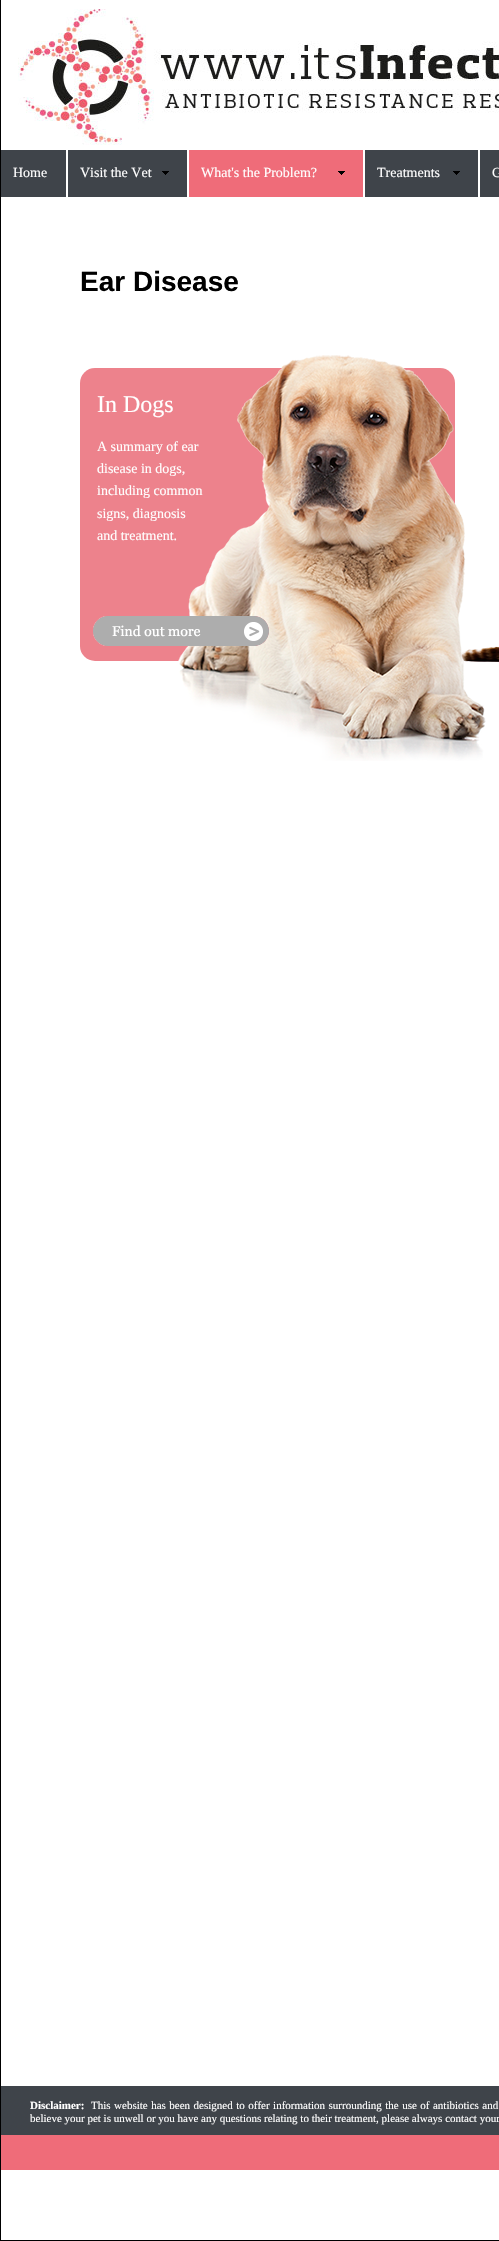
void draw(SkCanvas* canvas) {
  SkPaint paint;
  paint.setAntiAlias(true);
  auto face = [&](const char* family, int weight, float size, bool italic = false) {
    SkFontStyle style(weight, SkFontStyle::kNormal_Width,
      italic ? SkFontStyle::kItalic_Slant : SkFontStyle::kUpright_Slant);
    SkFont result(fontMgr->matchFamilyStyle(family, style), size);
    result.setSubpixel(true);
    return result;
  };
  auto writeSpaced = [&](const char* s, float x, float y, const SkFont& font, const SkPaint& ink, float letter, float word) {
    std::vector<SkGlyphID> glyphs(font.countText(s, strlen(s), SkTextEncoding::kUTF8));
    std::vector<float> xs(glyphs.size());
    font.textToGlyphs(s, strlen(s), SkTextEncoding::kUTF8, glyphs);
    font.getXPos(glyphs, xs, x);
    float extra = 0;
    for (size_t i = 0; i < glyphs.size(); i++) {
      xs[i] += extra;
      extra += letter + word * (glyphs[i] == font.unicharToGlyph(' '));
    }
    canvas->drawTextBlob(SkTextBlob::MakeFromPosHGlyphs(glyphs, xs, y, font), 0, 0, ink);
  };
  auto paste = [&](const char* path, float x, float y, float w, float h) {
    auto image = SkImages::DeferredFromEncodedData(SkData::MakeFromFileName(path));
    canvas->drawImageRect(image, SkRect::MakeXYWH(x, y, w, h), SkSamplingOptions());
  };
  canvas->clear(0xffffffff);
  paint.setStroke(true);
  paint.setStrokeWidth(1);
  paint.setColor(0xff000000);
  canvas->drawRect(SkRect::MakeXYWH(0.5f, -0.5f, 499, 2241), paint);
  paste("img/1.png", 18, 9, 481, 136);
  paint.setStroke(false);
  paint.setColor(0xff3f444a);
  canvas->drawRect(SkRect::MakeXYWH(1, 150, 65, 47), paint);
  canvas->drawRect(SkRect::MakeXYWH(68, 150, 119, 47), paint);
  paste("img/2.png", 162, 171, 7, 4);
  paint.setColor(0xffef6c79);
  canvas->drawRect(SkRect::MakeXYWH(189, 150, 174, 47), paint);
  paste("img/3.png", 338, 171, 7, 4);
  paint.setColor(0xff3f444a);
  canvas->drawRect(SkRect::MakeXYWH(365, 150, 113, 47), paint);
  paste("img/2.png", 453, 171, 7, 4);
  canvas->drawRect(SkRect::MakeXYWH(480, 150, 19, 47), paint);
  paint.setColor(0xffed828c);
  canvas->drawRoundRect(SkRect::MakeXYWH(80, 368, 375, 293), 15, 15, paint);
  paste("img/6.png", 461, 646, 38, 16);
  paint.setColor(0xff3f444a);
  canvas->drawRect(SkRect::MakeXYWH(1, 2086, 498, 49), paint);
  paint.setColor(0xffef6c79);
  canvas->drawRect(SkRect::MakeXYWH(1, 2135, 498, 35), paint);
  auto f0 = face("Liberation Serif", 400, 14);
  paint.setColor(0xffffffff);
  {
    const struct { const char* s; float x, y; } items[] = {
      {"Home", 13, 177},
      {"Visit the Vet", 80, 177},
      {"What's the Problem?", 201, 177},
      {"Treatments", 377, 177},
      {"G", 492, 177},
    };
    for (auto [s, x, y] : items) {
      canvas->drawString(s, x, y, f0, paint);
    }
  }
  auto f1 = face("Liberation Sans", 700, 28);
  paint.setColor(0xff000000);
  canvas->drawString("Ear Disease", 80, 291, f1, paint);
  auto f2 = face("Liberation Serif", 400, 24);
  paint.setColor(0xffffffff);
  canvas->drawString("In Dogs", 97, 412, f2, paint);
  {
    const struct { const char* s; float x, y; } items[] = {
      {"A summary of ear", 97, 451},
      {"disease in dogs,", 97, 473},
      {"including common", 97, 495},
      {"signs, diagnosis", 97, 518},
      {"and treatment.", 97, 540},
    };
    for (auto [s, x, y] : items) {
      canvas->drawString(s, x, y, f0, paint);
    }
  }
  paste("img/4.png", 178, 355, 308, 406);
  paste("img/5.png", 93, 616, 176, 30);
  auto f3 = face("Liberation Serif", 700, 11);
  canvas->drawString("Disclaimer:", 30, 2109, f3, paint);
  auto f4 = face("Liberation Serif", 400, 11);
  writeSpaced("This website has been designed to offer information surrounding the use of antibiotics and", 91, 2109, f4, paint, 0, 0.75f);
  canvas->drawString("believe your pet is unwell or you have any questions relating to their treatment, please always contact your", 30, 2122, f4, paint);
}
